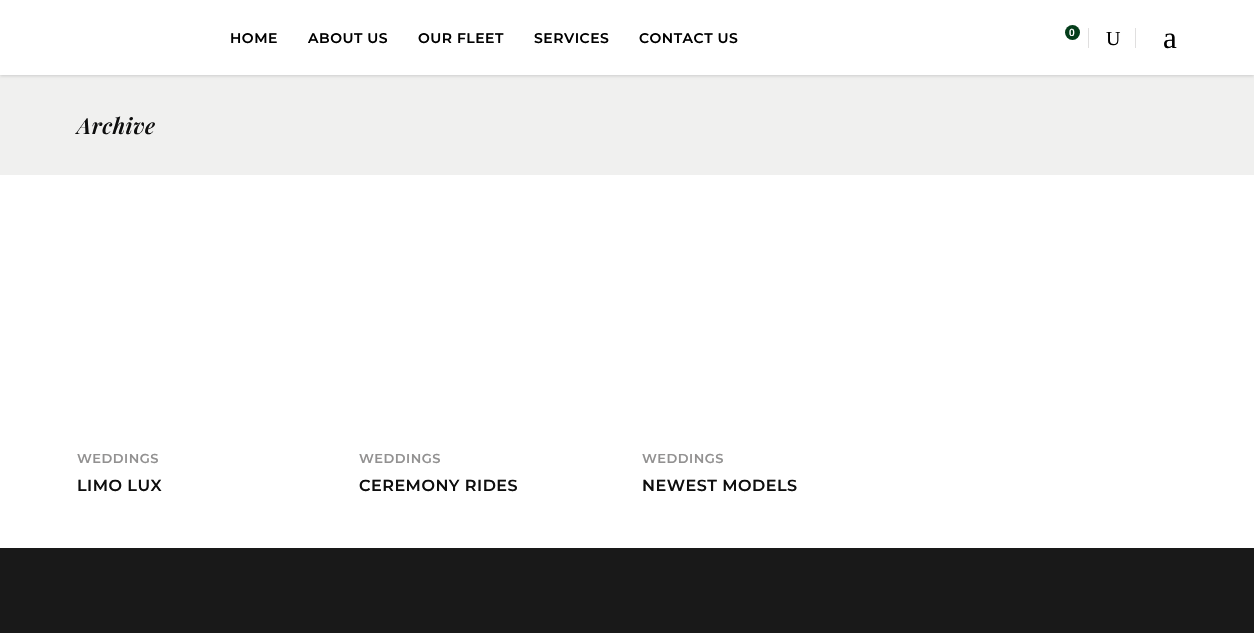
void draw(SkCanvas* canvas) {
  SkPaint paint;
  paint.setAntiAlias(true);
  auto face = [&](const char* family, int weight, float size, bool italic = false) {
    SkFontStyle style(weight, SkFontStyle::kNormal_Width,
      italic ? SkFontStyle::kItalic_Slant : SkFontStyle::kUpright_Slant);
    SkFont result(fontMgr->matchFamilyStyle(family, style), size);
    result.setSubpixel(true);
    return result;
  };
  auto writeSpaced = [&](const char* s, float x, float y, const SkFont& font, const SkPaint& ink, float letter, float word) {
    std::vector<SkGlyphID> glyphs(font.countText(s, strlen(s), SkTextEncoding::kUTF8));
    std::vector<float> xs(glyphs.size());
    font.textToGlyphs(s, strlen(s), SkTextEncoding::kUTF8, glyphs);
    font.getXPos(glyphs, xs, x);
    float extra = 0;
    for (size_t i = 0; i < glyphs.size(); i++) {
      xs[i] += extra;
      extra += letter + word * (glyphs[i] == font.unicharToGlyph(' '));
    }
    canvas->drawTextBlob(SkTextBlob::MakeFromPosHGlyphs(glyphs, xs, y, font), 0, 0, ink);
  };
  canvas->clear(0xffffffff);
  paint.setColor(0xfff0f0ef);
  canvas->drawRect(SkRect::MakeXYWH(0, 75, 1254, 100), paint);
  paint.setColor(0x26000000);
  paint.setMaskFilter(SkMaskFilter::MakeBlur(kNormal_SkBlurStyle, 1.5f));
  canvas->drawRect(SkRect::MakeXYWH(0, 1, 1254, 75), paint);
  paint.setMaskFilter(nullptr);
  paint.setColor(0xffffffff);
  canvas->drawRect(SkRect::MakeXYWH(0, 0, 1254, 75), paint);
  paint.setColor(0xff043d1a);
  canvas->drawCircle(1072.5f, 32.5f, 7.5f, paint);
  {
    const struct { float x, y, w, h; SkColor color; } items[] = {
      {1088, 28, 1, 20, 0xffe0dfdf},
      {1135, 28, 1, 20, 0xffe0dfdf},
      {0, 548, 1254, 85, 0xff191919},
    };
    for (auto [x, y, w, h, color] : items) {
      paint.setColor(color);
      canvas->drawRect(SkRect::MakeXYWH(x, y, w, h), paint);
    }
  }
  auto f0 = face("Montserrat", 600, 14);
  paint.setColor(0xff000000);
  {
    const struct { const char* s; float x, y; } items[] = {
      {"HOME", 230, 43},
      {"ABOUT US", 308, 43},
      {"OUR FLEET", 418, 43},
      {"SERVICES", 534, 43},
      {"CONTACT US", 639, 43},
    };
    for (auto [s, x, y] : items) {
      writeSpaced(s, x, y, f0, paint, 0.5f, 0);
    }
  }
  auto f1 = face("Roboto", 500, 10);
  paint.setColor(0xffffffff);
  canvas->drawString("0", 1069, 36, f1, paint);
  auto f2 = face("Liberation Serif", 400, 20);
  paint.setColor(0xff000000);
  canvas->drawString("U", 1106, 45, f2, paint);
  auto f3 = face("Liberation Serif", 400, 31);
  canvas->drawString("a", 1163, 48, f3, paint);
  auto f4 = face("Playfair Display", 600, 22, true);
  paint.setColor(0xff0e0e0e);
  writeSpaced("Archive", 77, 134, f4, paint, 0.5f, 0);
  auto f5 = face("Montserrat", 600, 13);
  paint.setColor(0xff929191);
  writeSpaced("WEDDINGS", 77, 463, f5, paint, 0.5f, 0);
  auto f6 = face("Montserrat", 600, 16);
  paint.setColor(0xff0e0e0e);
  writeSpaced("LIMO LUX", 77, 491, f6, paint, 0.5f, 0);
  paint.setColor(0xff929191);
  writeSpaced("WEDDINGS", 359, 463, f5, paint, 0.5f, 0);
  paint.setColor(0xff0e0e0e);
  writeSpaced("CEREMONY RIDES", 359, 491, f6, paint, 0.5f, 0);
  paint.setColor(0xff929191);
  writeSpaced("WEDDINGS", 642, 463, f5, paint, 0.5f, 0);
  paint.setColor(0xff0e0e0e);
  writeSpaced("NEWEST MODELS", 642, 491, f6, paint, 0.5f, 0);
}
